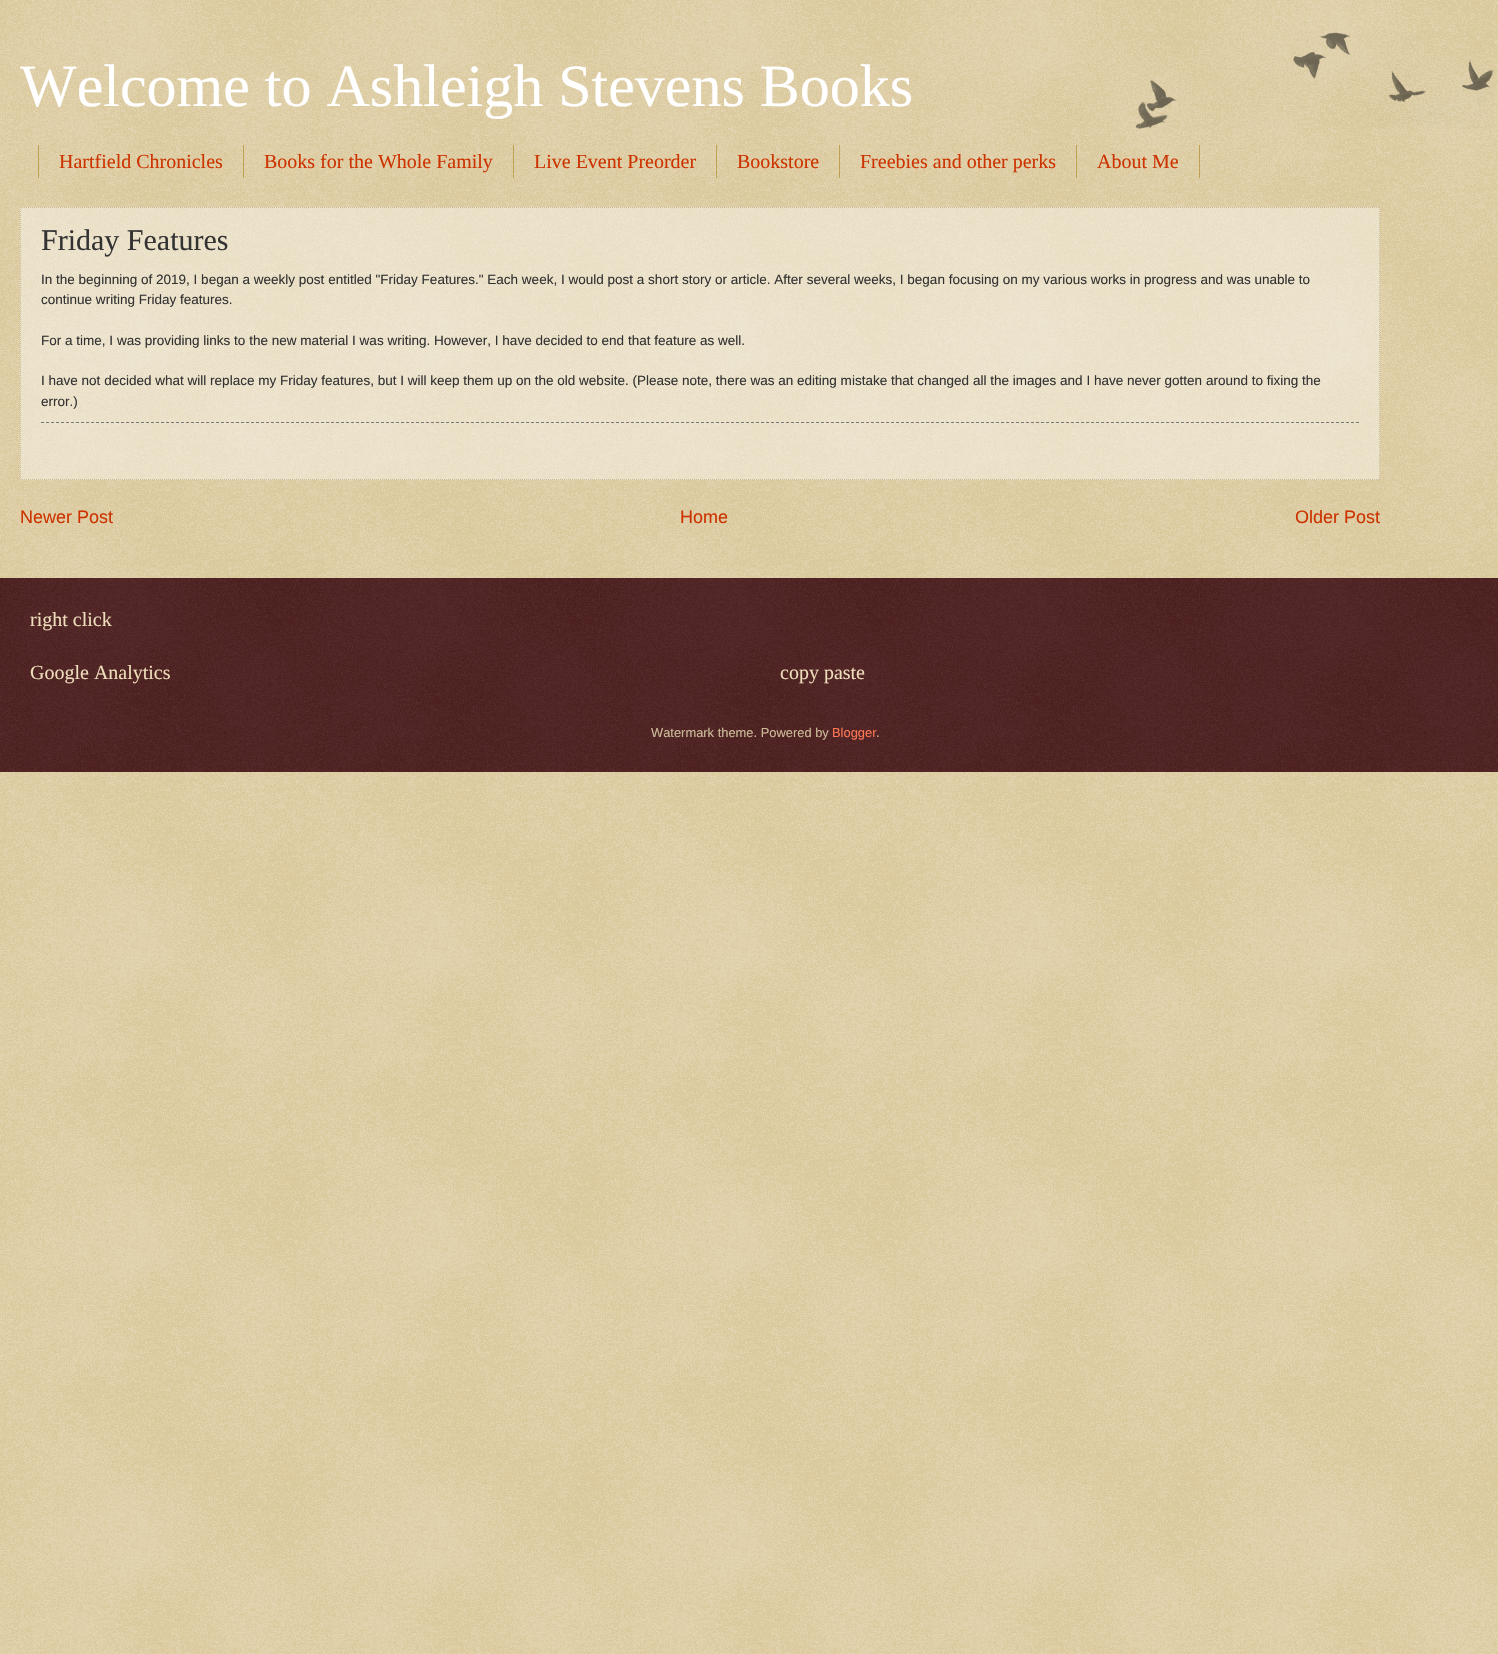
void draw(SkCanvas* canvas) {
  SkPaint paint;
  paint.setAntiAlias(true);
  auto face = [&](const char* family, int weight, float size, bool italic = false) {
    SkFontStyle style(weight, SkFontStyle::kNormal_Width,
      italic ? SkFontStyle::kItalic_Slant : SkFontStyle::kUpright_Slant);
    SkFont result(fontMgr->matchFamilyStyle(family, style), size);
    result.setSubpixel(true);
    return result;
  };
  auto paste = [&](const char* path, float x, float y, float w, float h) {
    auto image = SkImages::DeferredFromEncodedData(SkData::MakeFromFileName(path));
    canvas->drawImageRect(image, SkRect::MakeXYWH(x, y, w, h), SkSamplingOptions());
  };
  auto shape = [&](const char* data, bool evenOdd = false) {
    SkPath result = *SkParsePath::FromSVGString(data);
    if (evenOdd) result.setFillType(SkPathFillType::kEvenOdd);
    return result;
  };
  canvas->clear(0xffc0a154);
  paste("img/1.png", 0, 0, 1498, 1654);
  paste("img/2.png", 1135, 32, 359, 97);
  {
    const struct { float x, y, w, h; SkColor color; } items[] = {
      {243, 145, 1, 33, 0xffc0a154},
      {38, 145, 1, 33, 0xffc0a154},
      {513, 145, 1, 33, 0xffc0a154},
      {716, 145, 1, 33, 0xffc0a154},
      {839, 145, 1, 33, 0xffc0a154},
      {1076, 145, 1, 33, 0xffc0a154},
      {1199, 145, 1, 33, 0xffc0a154},
      {20, 207, 1360, 273, 0x66ffffff},
    };
    for (auto [x, y, w, h, color] : items) {
      paint.setColor(color);
      canvas->drawRect(SkRect::MakeXYWH(x, y, w, h), paint);
    }
  }
  paint.setStroke(true);
  paint.setStrokeWidth(1);
  paint.setColor(0xffccbb99);
  paint.setPathEffect(SkDashPathEffect::Make({{1, 1}}, 0));
  canvas->drawPath(shape("M20 207.5H1380"), paint);
  paint.setPathEffect(nullptr);
  paint.setPathEffect(SkDashPathEffect::Make({{1, 1}}, 0));
  canvas->drawPath(shape("M1379.5 207V480"), paint);
  paint.setPathEffect(nullptr);
  paint.setPathEffect(SkDashPathEffect::Make({{1, 1}}, 0));
  canvas->drawPath(shape("M20 479.5H1380"), paint);
  paint.setPathEffect(nullptr);
  paint.setPathEffect(SkDashPathEffect::Make({{1, 1}}, 0));
  canvas->drawPath(shape("M20.5 207V480"), paint);
  paint.setPathEffect(nullptr);
  paint.setColor(0xff777777);
  paint.setPathEffect(SkDashPathEffect::Make({{3, 2}}, 0));
  canvas->drawPath(shape("M41 422.5H1359"), paint);
  paint.setPathEffect(nullptr);
  paint.setStroke(false);
  paint.setColor(0xff330000);
  canvas->drawRect(SkRect::MakeXYWH(0, 578, 1498, 194), paint);
  paste("img/3.png", 0, 578, 1498, 194);
  auto f0 = face("Liberation Serif", 400, 60);
  paint.setColor(0xffffffff);
  canvas->drawString("Welcome to Ashleigh Stevens Books", 20, 106, f0, paint);
  auto f1 = face("Liberation Serif", 400, 20);
  paint.setColor(0xffcc3300);
  {
    const struct { const char* s; float x, y; } items[] = {
      {"Hartfield Chronicles", 59, 168},
      {"Books for the Whole Family", 264, 168},
      {"Live Event Preorder", 534, 168},
      {"Bookstore", 737, 168},
      {"Freebies and other perks", 860, 168},
      {"About Me", 1097, 168},
    };
    for (auto [s, x, y] : items) {
      canvas->drawString(s, x, y, f1, paint);
    }
  }
  auto f2 = face("Liberation Serif", 400, 30);
  paint.setColor(0xff333333);
  canvas->drawString("Friday Features", 41, 250, f2, paint);
  auto f3 = face("Liberation Sans", 400, 13.52f);
  {
    const struct { const char* s; float x, y; } items[] = {
      {"In the beginning of 2019, I began a weekly post entitled \"Friday Features.\" Each week, I would post a short story or article. After several weeks, I began focusing on my various works in progress and was unable to", 41, 284},
      {"continue writing Friday features.", 41, 304},
      {"For a time, I was providing links to the new material I was writing. However, I have decided to end that feature as well.", 41, 345},
      {"I have not decided what will replace my Friday features, but I will keep them up on the old website. (Please note, there was an editing mistake that changed all the images and I have never gotten around to fixing the", 41, 385},
      {"error.)", 41, 406},
    };
    for (auto [s, x, y] : items) {
      canvas->drawString(s, x, y, f3, paint);
    }
  }
  auto f4 = face("Liberation Sans", 400, 18);
  paint.setColor(0xffcc3300);
  {
    const struct { const char* s; float x, y; } items[] = {
      {"Newer Post", 20, 523},
      {"Home", 680, 523},
      {"Older Post", 1295, 523},
    };
    for (auto [s, x, y] : items) {
      canvas->drawString(s, x, y, f4, paint);
    }
  }
  paint.setColor(0xffeeddbb);
  {
    const struct { const char* s; float x, y; } items[] = {
      {"right click", 30, 626},
      {"Google Analytics", 30, 679},
      {"copy paste", 780, 679},
    };
    for (auto [s, x, y] : items) {
      canvas->drawString(s, x, y, f1, paint);
    }
  }
  auto f5 = face("Liberation Sans", 400, 12.9f);
  paint.setColor(0xffccbb99);
  canvas->drawString("Watermark theme. Powered by", 651, 737, f5, paint);
  paint.setColor(0xffff7755);
  canvas->drawString("Blogger", 832, 737, f5, paint);
  paint.setColor(0xffccbb99);
  canvas->drawString(".", 876, 737, f5, paint);
}
